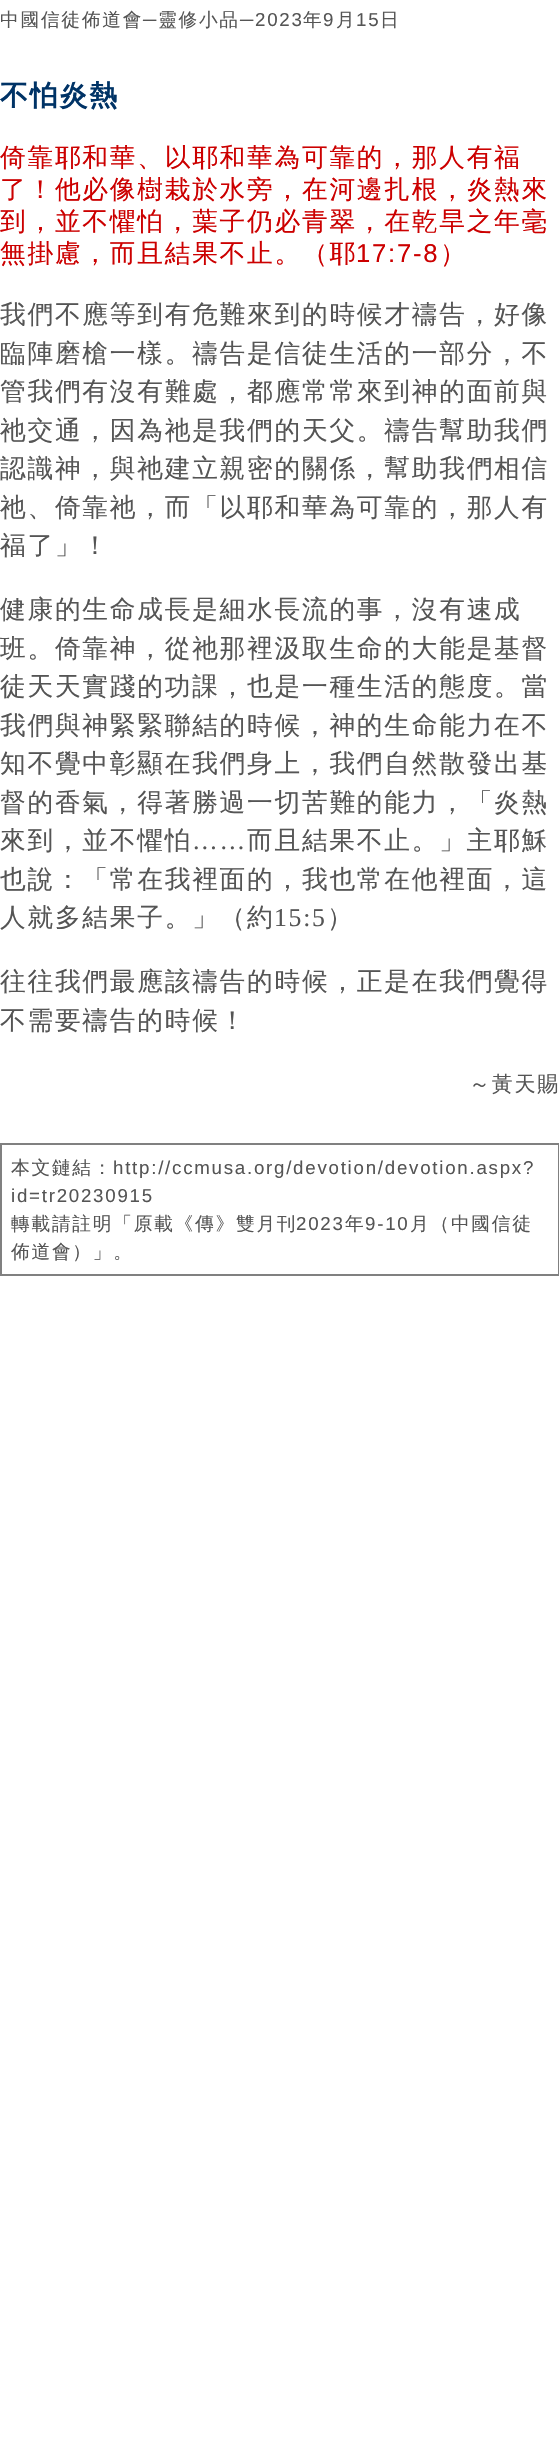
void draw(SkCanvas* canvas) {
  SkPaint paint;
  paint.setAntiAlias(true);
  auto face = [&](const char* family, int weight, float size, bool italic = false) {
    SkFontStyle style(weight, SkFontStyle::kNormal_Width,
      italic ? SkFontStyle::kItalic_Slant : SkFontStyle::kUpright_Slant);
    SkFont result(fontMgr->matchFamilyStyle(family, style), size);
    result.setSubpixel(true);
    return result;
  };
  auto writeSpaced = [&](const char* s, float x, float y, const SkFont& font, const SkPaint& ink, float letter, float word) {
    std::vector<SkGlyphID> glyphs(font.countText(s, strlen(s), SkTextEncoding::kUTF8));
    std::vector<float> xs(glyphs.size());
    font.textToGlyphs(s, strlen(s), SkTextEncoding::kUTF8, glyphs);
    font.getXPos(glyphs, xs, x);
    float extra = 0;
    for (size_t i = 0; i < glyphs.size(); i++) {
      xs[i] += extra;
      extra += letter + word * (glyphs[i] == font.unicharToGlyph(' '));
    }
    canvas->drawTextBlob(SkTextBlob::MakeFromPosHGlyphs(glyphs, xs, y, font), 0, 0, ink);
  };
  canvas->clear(0xffffffff);
  paint.setStroke(true);
  paint.setStrokeWidth(2);
  paint.setColor(0xff808080);
  canvas->drawRect(SkRect::MakeXYWH(1, 1144, 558, 131), paint);
  auto f0 = face("WenQuanYi Zen Hei", 500, 18.7f);
  paint.setStroke(false);
  paint.setColor(0xff555555);
  writeSpaced("中國信徒佈道會", 0, 26, f0, paint, 1.75f, 0);
  auto f1 = face("Liberation Sans", 400, 18.7f);
  writeSpaced("─", 143, 26, f1, paint, 1.75f, 0);
  writeSpaced("靈修小品", 158, 26, f0, paint, 1.75f, 0);
  writeSpaced("─2023", 240, 26, f1, paint, 1.75f, 0);
  writeSpaced("年", 303, 26, f0, paint, 1.75f, 0);
  writeSpaced("9", 323, 26, f1, paint, 1.75f, 0);
  writeSpaced("月", 336, 26, f0, paint, 1.75f, 0);
  writeSpaced("15", 356, 26, f1, paint, 1.75f, 0);
  writeSpaced("日", 380, 26, f0, paint, 1.75f, 0);
  auto f2 = face("WenQuanYi Zen Hei", 700, 28);
  paint.setColor(0xff003366);
  writeSpaced("不怕炎熱", 0, 105, f2, paint, 1.75f, 0);
  auto f3 = face("WenQuanYi Zen Hei", 500, 25.7f);
  paint.setColor(0xffcc0000);
  {
    const struct { const char* s; float x, y; } items[] = {
      {"倚靠耶和華、以耶和華為可靠的，那人有福", 0, 166},
      {"了！他必像樹栽於水旁，在河邊扎根，炎熱來", 0, 198},
      {"到，並不懼怕，葉子仍必青翠，在乾旱之年毫", 0, 230},
      {"無掛慮，而且結果不止。（耶", 0, 262},
    };
    for (auto [s, x, y] : items) {
      writeSpaced(s, x, y, f3, paint, 1.75f, 0);
    }
  }
  auto f4 = face("Liberation Sans", 400, 25.7f);
  writeSpaced("17:7-8", 356, 262, f4, paint, 1.75f, 0);
  writeSpaced("）", 440, 262, f3, paint, 1.75f, 0);
  paint.setColor(0xff555555);
  {
    const struct { const char* s; float x, y; } items[] = {
      {"我們不應等到有危難來到的時候才禱告，好像", 0, 323},
      {"臨陣磨槍一樣。禱告是信徒生活的一部分，不", 0, 362},
      {"管我們有沒有難處，都應常常來到神的面前與", 0, 400},
      {"祂交通，因為祂是我們的天父。禱告幫助我們", 0, 439},
      {"認識神，與祂建立親密的關係，幫助我們相信", 0, 477},
      {"祂、倚靠祂，而「以耶和華為可靠的，那人有", 0, 516},
      {"福了」！", 0, 554},
      {"健康的生命成長是細水長流的事，沒有速成", 0, 618},
      {"班。倚靠神，從祂那裡汲取生命的大能是基督", 0, 657},
      {"徒天天實踐的功課，也是一種生活的態度。當", 0, 695},
      {"我們與神緊緊聯結的時候，神的生命能力在不", 0, 734},
      {"知不覺中彰顯在我們身上，我們自然散發出基", 0, 772},
      {"督的香氣，得著勝過一切苦難的能力，「炎熱", 0, 811},
      {"來到，並不懼怕", 0, 849},
    };
    for (auto [s, x, y] : items) {
      writeSpaced(s, x, y, f3, paint, 1.75f, 0);
    }
  }
  auto f5 = face("Liberation Serif", 400, 25.7f);
  writeSpaced("……", 192, 849, f5, paint, 1.75f, 0);
  {
    const struct { const char* s; float x, y; } items[] = {
      {"而且結果不止。」主耶穌", 247, 849},
      {"也說：「常在我裡面的，我也常在他裡面，這", 0, 888},
      {"人就多結果子。」（約", 0, 926},
    };
    for (auto [s, x, y] : items) {
      writeSpaced(s, x, y, f3, paint, 1.75f, 0);
    }
  }
  writeSpaced("15:5", 274, 926, f5, paint, 1.75f, 0);
  {
    const struct { const char* s; float x, y; } items[] = {
      {"）", 327, 926},
      {"往往我們最應該禱告的時候，正是在我們覺得", 0, 990},
      {"不需要禱告的時候！", 0, 1029},
    };
    for (auto [s, x, y] : items) {
      writeSpaced(s, x, y, f3, paint, 1.75f, 0);
    }
  }
  auto f6 = face("WenQuanYi Zen Hei", 500, 21);
  writeSpaced("～黃天賜", 469, 1091, f6, paint, 1.75f, 0);
  writeSpaced("本文鏈結：", 11, 1174, f0, paint, 1.75f, 0);
  writeSpaced("http://ccmusa.org/devotion/devotion.aspx?", 113, 1174, f1, paint, 1.75f, 0);
  writeSpaced("id=tr20230915", 11, 1202, f1, paint, 1.75f, 0);
  writeSpaced("轉載請註明「原載《傳》雙月刊", 11, 1230, f0, paint, 1.75f, 0);
  writeSpaced("2023", 296, 1230, f1, paint, 1.75f, 0);
  writeSpaced("年", 345, 1230, f0, paint, 1.75f, 0);
  writeSpaced("9-10", 365, 1230, f1, paint, 1.75f, 0);
  writeSpaced("月（中國信徒", 410, 1230, f0, paint, 1.75f, 0);
  writeSpaced("佈道會）」。", 11, 1258, f0, paint, 1.75f, 0);
}
